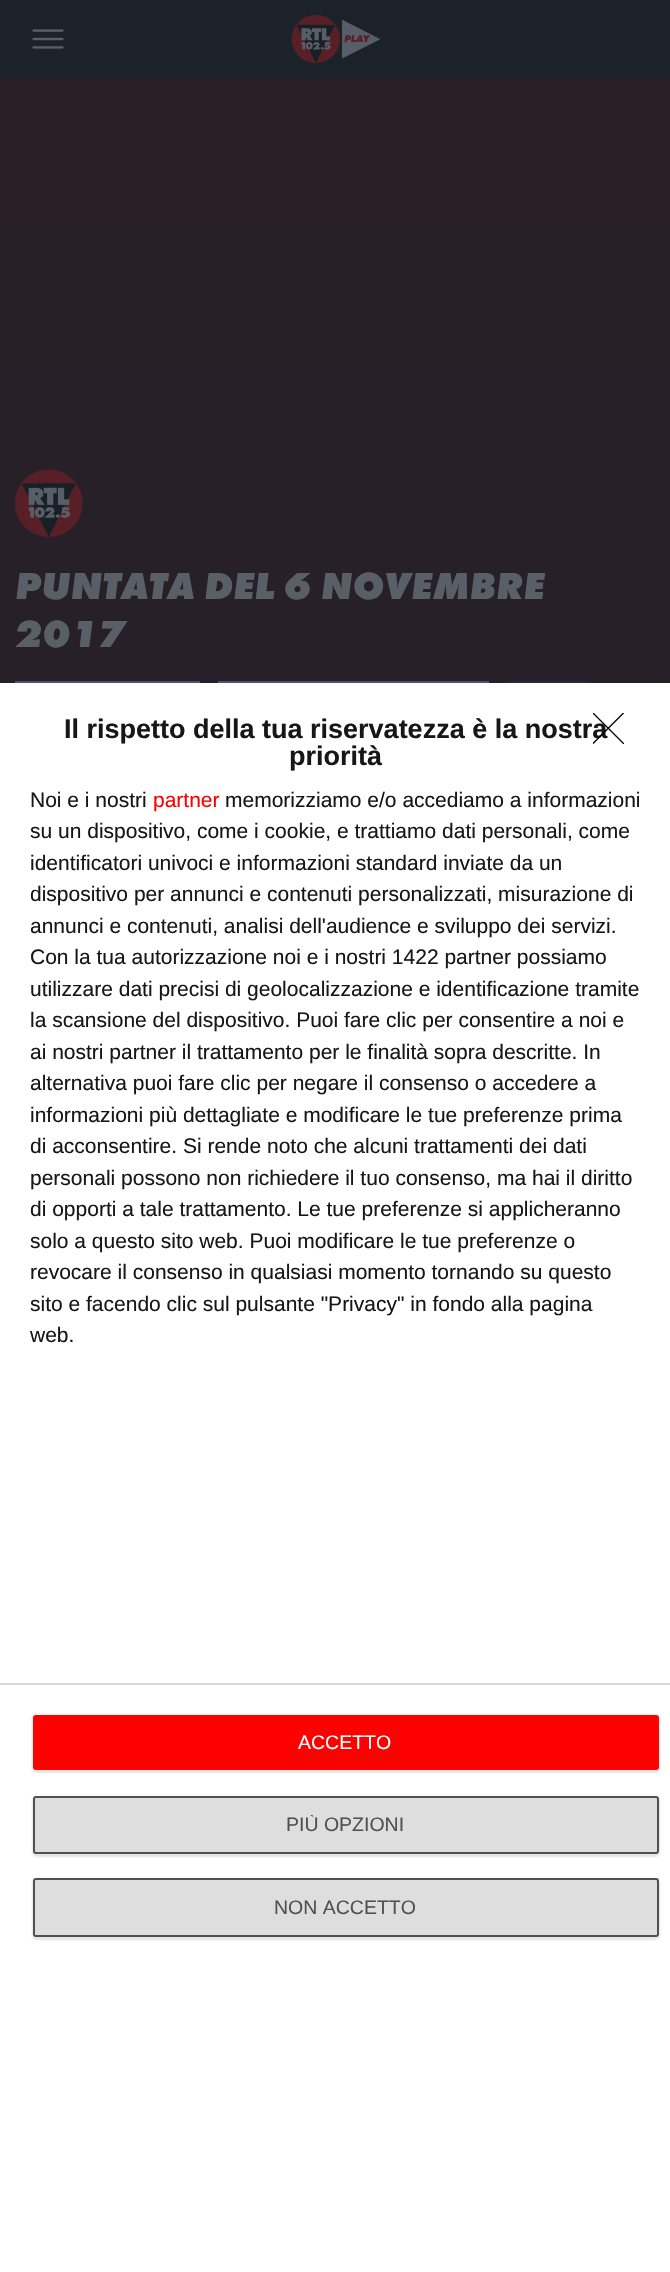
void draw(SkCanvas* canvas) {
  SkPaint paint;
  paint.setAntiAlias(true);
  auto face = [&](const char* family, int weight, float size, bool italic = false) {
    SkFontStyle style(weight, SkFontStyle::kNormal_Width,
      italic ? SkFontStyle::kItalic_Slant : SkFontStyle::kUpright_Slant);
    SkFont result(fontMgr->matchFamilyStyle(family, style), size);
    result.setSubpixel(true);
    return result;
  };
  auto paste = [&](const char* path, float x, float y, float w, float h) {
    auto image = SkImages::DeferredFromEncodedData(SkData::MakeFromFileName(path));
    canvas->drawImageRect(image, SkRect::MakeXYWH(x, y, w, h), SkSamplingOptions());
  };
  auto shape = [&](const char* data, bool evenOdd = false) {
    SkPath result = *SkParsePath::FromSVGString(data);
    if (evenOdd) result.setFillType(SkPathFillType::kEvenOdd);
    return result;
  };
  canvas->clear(0xffffffff);
  {
    const SkColor colors[] = {0xff2b1f27, 0xff1c222a};
    const float stops[] = {0, 1};
    const SkPoint ends[] = {{335, 0}, {335, 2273}};
    paint.setShader(SkGradientShader::MakeLinear(ends, colors, stops, 2, SkTileMode::kClamp));
    paint.setAlpha(255);
  }
  canvas->drawRect(SkRect::MakeXYWH(0, 78, 670, 605), paint);
  paint.setShader(nullptr);
  paint.setColor(0xff1c222a);
  canvas->drawRect(SkRect::MakeXYWH(0, 0, 670, 78), paint);
  paste("img/1.png", 32, 29, 32, 20);
  paste("img/2.png", 291, 14, 90, 50);
  paste("img/3.png", 15, 470, 68, 67);
  {
    const struct { float x, y, w, h; SkColor color; } items[] = {
      {15, 681, 185, 2, 0xff50565f},
      {218, 681, 271, 2, 0xff50565f},
      {507, 681, 83, 2, 0xff252a33},
      {0, 1683, 670, 2, 0xffd8d8d8},
    };
    for (auto [x, y, w, h, color] : items) {
      paint.setColor(color);
      canvas->drawRect(SkRect::MakeXYWH(x, y, w, h), paint);
    }
  }
  paint.setColor(0x1a000000);
  paint.setMaskFilter(SkMaskFilter::MakeBlur(kNormal_SkBlurStyle, 1));
  canvas->drawRoundRect(SkRect::MakeXYWH(32, 1715, 628, 58), 5, 5, paint);
  paint.setMaskFilter(nullptr);
  paint.setColor(0xffff0000);
  canvas->drawRoundRect(SkRect::MakeXYWH(33, 1715, 626, 55), 3, 3, paint);
  paint.setColor(0x1a000000);
  paint.setMaskFilter(SkMaskFilter::MakeBlur(kNormal_SkBlurStyle, 1));
  canvas->drawRoundRect(SkRect::MakeXYWH(32, 1796, 628, 61), 5, 5, paint);
  paint.setMaskFilter(nullptr);
  paint.setColor(0xffdedede);
  canvas->drawRoundRect(SkRect::MakeXYWH(34, 1797, 624, 56), 2, 2, paint);
  paint.setStroke(true);
  paint.setStrokeWidth(2);
  paint.setColor(0xff515151);
  canvas->drawRoundRect(SkRect::MakeXYWH(34, 1797, 624, 56), 2, 2, paint);
  paint.setStroke(false);
  paint.setColor(0x1a000000);
  paint.setMaskFilter(SkMaskFilter::MakeBlur(kNormal_SkBlurStyle, 1));
  canvas->drawRoundRect(SkRect::MakeXYWH(32, 1878, 628, 62), 5, 5, paint);
  paint.setMaskFilter(nullptr);
  paint.setColor(0xffdedede);
  canvas->drawRoundRect(SkRect::MakeXYWH(34, 1879, 624, 57), 2, 2, paint);
  paint.setStroke(true);
  paint.setColor(0xff515151);
  canvas->drawRoundRect(SkRect::MakeXYWH(34, 1879, 624, 57), 2, 2, paint);
  auto f0 = face("Futura PT", 800, 39, true);
  paint.setStroke(false);
  paint.setColor(0xff595f67);
  canvas->drawString("PUNTATA DEL 6 NOVEMBRE", 15, 599, f0, paint);
  canvas->drawString("2017", 15, 647, f0, paint);
  auto f1 = face("Liberation Sans", 700, 27);
  paint.setColor(0xff171717);
  canvas->drawString("Il rispetto della tua riservatezza è la nostra", 64, 738, f1, paint);
  canvas->save();
  canvas->clipRect(SkRect::MakeXYWH(593, 713, 31, 31));
  paint.setStroke(true);
  paint.setStrokeWidth(1.3f);
  paint.setStrokeCap(SkPaint::kRound_Cap);
  paint.setStrokeJoin(SkPaint::kRound_Join);
  paint.setColor(0xff000000);
  canvas->drawPath(shape("M593 713L623.5 743.5M623.5 713L593 743.5"), paint);
  canvas->restore();
  paint.setStroke(false);
  paint.setColor(0xff171717);
  canvas->drawString("priorità", 289, 765, f1, paint);
  auto f2 = face("Liberation Sans", 400, 21);
  canvas->drawString("Noi e i nostri", 30, 807, f2, paint);
  paint.setColor(0xffff0000);
  canvas->drawString("partner", 153, 807, f2, paint);
  paint.setColor(0xff171717);
  {
    const struct { const char* s; float x, y; } items[] = {
      {"memorizziamo e/o accediamo a informazioni", 225, 807},
      {"su un dispositivo, come i cookie, e trattiamo dati personali, come", 30, 838},
      {"identificatori univoci e informazioni standard inviate da un", 30, 870},
      {"dispositivo per annunci e contenuti personalizzati, misurazione di", 30, 901},
      {"annunci e contenuti, analisi dell'audience e sviluppo dei servizi.", 30, 933},
      {"Con la tua autorizzazione noi e i nostri 1422 partner possiamo", 30, 964},
      {"utilizzare dati precisi di geolocalizzazione e identificazione tramite", 30, 996},
      {"la scansione del dispositivo. Puoi fare clic per consentire a noi e", 30, 1027},
      {"ai nostri partner il trattamento per le finalità sopra descritte. In", 30, 1059},
      {"alternativa puoi fare clic per negare il consenso o accedere a", 30, 1090},
      {"informazioni più dettagliate e modificare le tue preferenze prima", 30, 1122},
      {"di acconsentire. Si rende noto che alcuni trattamenti dei dati", 30, 1153},
      {"personali possono non richiedere il tuo consenso, ma hai il diritto", 30, 1185},
      {"di opporti a tale trattamento. Le tue preferenze si applicheranno", 30, 1216},
      {"solo a questo sito web. Puoi modificare le tue preferenze o", 30, 1248},
      {"revocare il consenso in qualsiasi momento tornando su questo", 30, 1279},
      {"sito e facendo clic sul pulsante \"Privacy\" in fondo alla pagina", 30, 1311},
      {"web.", 30, 1342},
    };
    for (auto [s, x, y] : items) {
      canvas->drawString(s, x, y, f2, paint);
    }
  }
  auto f3 = face("Liberation Sans", 400, 19.5f);
  paint.setColor(0xffffffff);
  canvas->drawString("ACCETTO", 298, 1749, f3, paint);
  canvas->save();
  canvas->clipRect(SkRect::MakeXYWH(287, 1815, 117, 20));
  paint.setColor(0xff515151);
  canvas->drawString("PIÙ OPZIONI", 286, 1831, f3, paint);
  canvas->restore();
  canvas->drawString("NON ACCETTO", 274, 1914, f3, paint);
}
